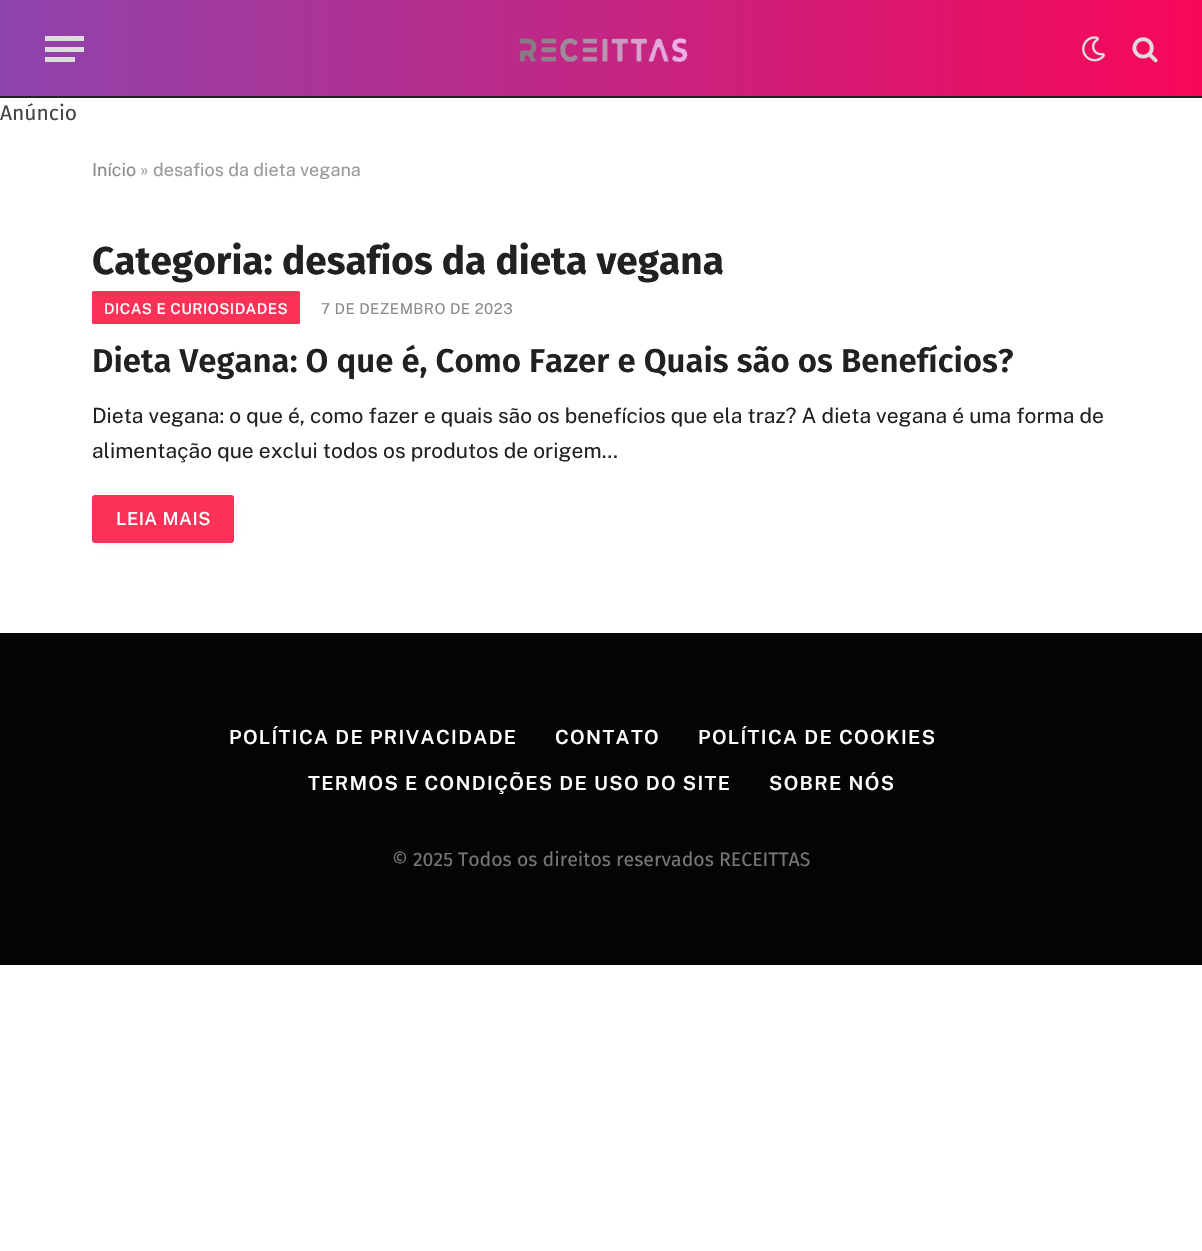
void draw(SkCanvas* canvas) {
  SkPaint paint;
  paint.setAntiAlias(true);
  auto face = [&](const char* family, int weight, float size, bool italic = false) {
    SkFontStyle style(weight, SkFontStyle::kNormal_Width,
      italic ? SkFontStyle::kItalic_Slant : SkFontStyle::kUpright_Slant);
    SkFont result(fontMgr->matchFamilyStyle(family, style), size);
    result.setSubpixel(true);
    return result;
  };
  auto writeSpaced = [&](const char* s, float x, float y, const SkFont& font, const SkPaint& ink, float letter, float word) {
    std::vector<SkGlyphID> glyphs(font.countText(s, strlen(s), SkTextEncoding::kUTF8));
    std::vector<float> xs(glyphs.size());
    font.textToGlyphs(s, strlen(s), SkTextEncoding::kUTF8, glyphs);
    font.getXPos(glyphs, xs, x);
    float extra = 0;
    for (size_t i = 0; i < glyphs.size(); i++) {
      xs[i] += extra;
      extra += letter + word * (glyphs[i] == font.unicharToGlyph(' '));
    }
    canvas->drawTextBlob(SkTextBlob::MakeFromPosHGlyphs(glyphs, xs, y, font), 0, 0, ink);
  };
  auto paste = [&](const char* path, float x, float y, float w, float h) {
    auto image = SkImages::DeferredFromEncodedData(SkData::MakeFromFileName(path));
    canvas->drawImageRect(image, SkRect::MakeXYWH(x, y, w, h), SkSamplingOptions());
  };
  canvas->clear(0xffffffff);
  {
    const SkColor colors[] = {0xff8e44ad, 0xfff80759};
    const float stops[] = {0, 1};
    const SkPoint ends[] = {{0, 48}, {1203, 48}};
    paint.setShader(SkGradientShader::MakeLinear(ends, colors, stops, 2, SkTileMode::kClamp));
    paint.setAlpha(255);
  }
  canvas->drawRect(SkRect::MakeXYWH(0, 0, 1202, 96), paint);
  paint.setShader(nullptr);
  {
    const struct { float x, y, w, h; SkColor color; } items[] = {
      {0, 96, 1202, 2, 0xff222222},
      {45, 57, 30, 5, 0xffdddddd},
      {45, 36, 39, 5, 0xffdddddd},
      {45, 47, 39, 5, 0xffdddddd},
    };
    for (auto [x, y, w, h, color] : items) {
      paint.setColor(color);
      canvas->drawRect(SkRect::MakeXYWH(x, y, w, h), paint);
    }
  }
  paste("img/1.png", 519, 38, 169, 25);
  paste("img/2.png", 1082, 36, 23, 26);
  paste("img/3.png", 1132, 37, 26, 26);
  paint.setColor(0xfffb3158);
  canvas->drawRoundRect(SkRect::MakeXYWH(92, 291, 208, 33), 1.5f, 1.5f, paint);
  paint.setColor(0x29000000);
  paint.setMaskFilter(SkMaskFilter::MakeBlur(kNormal_SkBlurStyle, 5));
  canvas->drawRect(SkRect::MakeXYWH(98, 504, 130, 36), paint);
  paint.setMaskFilter(nullptr);
  paint.setColor(0xfffb3158);
  canvas->drawRoundRect(SkRect::MakeXYWH(92, 495, 142, 48), 3, 3, paint);
  paint.setColor(0xff040404);
  canvas->drawRect(SkRect::MakeXYWH(0, 633, 1202, 332), paint);
  auto f0 = face("Fira Sans", 400, 21);
  paint.setColor(0xff444444);
  canvas->drawString("Anúncio", 0, 120, f0, paint);
  auto f1 = face("Public Sans", 400, 18);
  paint.setColor(0xff8a8a8a);
  canvas->drawString("Início", 92, 176, f1, paint);
  paint.setColor(0xff999999);
  canvas->drawString("» desafios da dieta vegana", 140, 176, f1, paint);
  auto f2 = face("Fira Sans", 700, 38.75f);
  paint.setColor(0xff212121);
  canvas->drawString("Categoria: desafios da dieta vegana", 92, 274, f2, paint);
  auto f3 = face("Public Sans", 500, 15);
  paint.setColor(0xffffffff);
  writeSpaced("DICAS E CURIOSIDADES", 104, 314, f3, paint, 0.45f, 0);
  auto f4 = face("Public Sans", 400, 15);
  paint.setColor(0xff8a8a8a);
  writeSpaced("7 DE DEZEMBRO DE 2023", 321, 314, f4, paint, 0.45f, 0);
  auto f5 = face("Fira Sans", 600, 33);
  paint.setColor(0xff212121);
  canvas->drawString("Dieta Vegana: O que é, Como Fazer e Quais são os Benefícios?", 92, 372, f5, paint);
  auto f6 = face("Public Sans", 400, 21);
  canvas->drawString("Dieta vegana: o que é, como fazer e quais são os benefícios que ela traz? A dieta vegana é uma forma de", 92, 423, f6, paint);
  canvas->drawString("alimentação que exclui todos os produtos de origem…", 92, 458, f6, paint);
  auto f7 = face("Public Sans", 500, 18);
  paint.setColor(0xffffffff);
  writeSpaced("LEIA MAIS", 116, 525, f7, paint, 0.5f, 0);
  auto f8 = face("Public Sans", 600, 19.5f);
  {
    const struct { const char* s; float x, y; } items[] = {
      {"POLÍTICA DE PRIVACIDADE", 229, 744},
      {"CONTATO", 555, 744},
      {"POLÍTICA DE COOKIES", 698, 744},
      {"TERMOS E CONDIÇÕES DE USO DO SITE", 308, 790},
      {"SOBRE NÓS", 769, 790},
    };
    for (auto [s, x, y] : items) {
      writeSpaced(s, x, y, f8, paint, 1.35f, 0);
    }
  }
  auto f9 = face("Fira Sans", 400, 19.5f);
  paint.setColor(0xff777777);
  canvas->drawString("© 2025 Todos os direitos reservados RECEITTAS", 392, 866, f9, paint);
}
